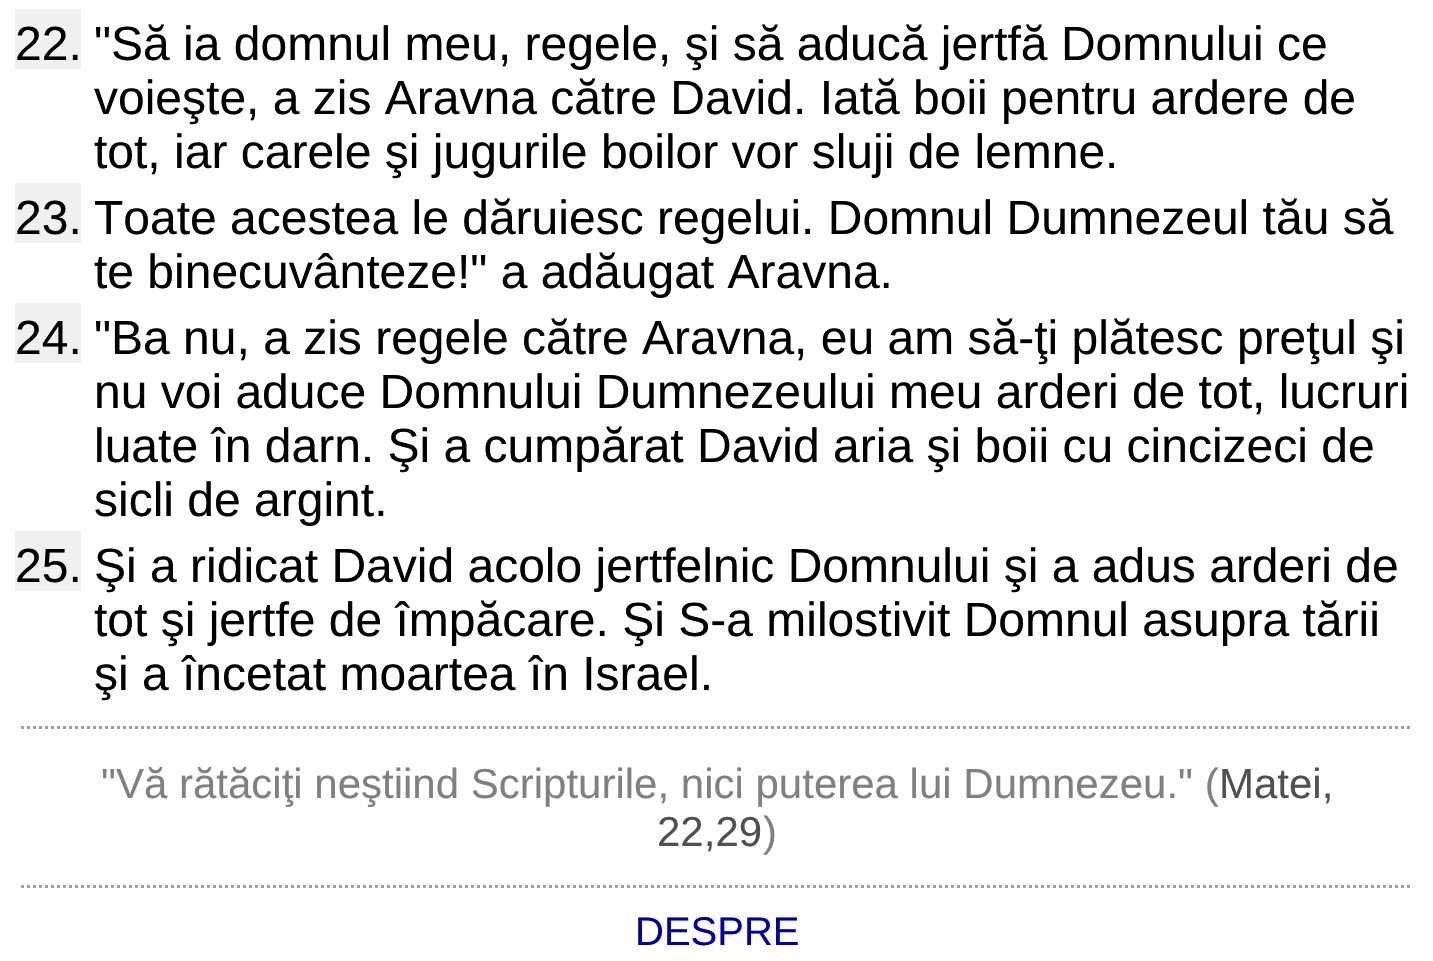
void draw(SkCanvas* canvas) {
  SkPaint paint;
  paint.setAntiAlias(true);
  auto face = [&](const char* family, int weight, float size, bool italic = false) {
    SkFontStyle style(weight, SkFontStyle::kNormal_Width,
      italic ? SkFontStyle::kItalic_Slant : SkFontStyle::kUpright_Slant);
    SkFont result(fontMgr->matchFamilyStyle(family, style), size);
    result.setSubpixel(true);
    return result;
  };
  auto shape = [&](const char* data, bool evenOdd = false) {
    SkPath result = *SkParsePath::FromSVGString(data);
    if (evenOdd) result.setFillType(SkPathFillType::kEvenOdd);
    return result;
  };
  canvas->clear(0xffffffff);
  {
    const struct { float x, y, w, h; SkColor color; } items[] = {
      {15, 9, 66, 60, 0xfff0f0f0},
      {15, 183, 66, 60, 0xfff0f0f0},
      {15, 303, 66, 60, 0xfff0f0f0},
      {15, 531, 66, 60, 0xfff0f0f0},
    };
    for (auto [x, y, w, h, color] : items) {
      paint.setColor(color);
      canvas->drawRect(SkRect::MakeXYWH(x, y, w, h), paint);
    }
  }
  paint.setStroke(true);
  paint.setStrokeWidth(3);
  paint.setColor(0xffa0a0a0);
  paint.setPathEffect(SkDashPathEffect::Make({{3, 3}}, 0));
  canvas->drawPath(shape("M21 727.5H1413"), paint);
  paint.setPathEffect(nullptr);
  paint.setPathEffect(SkDashPathEffect::Make({{3, 3}}, 0));
  canvas->drawPath(shape("M21 886.5H1413"), paint);
  paint.setPathEffect(nullptr);
  auto f0 = face("Liberation Sans", 400, 48);
  paint.setStroke(false);
  paint.setColor(0xff000000);
  {
    const struct { const char* s; float x, y; } items[] = {
      {"22.", 15, 60},
      {"\"Să ia domnul meu, regele, şi să aducă jertfă Domnului ce", 94, 60},
      {"voieşte, a zis Aravna către David. Iată boii pentru ardere de", 94, 114},
      {"tot, iar carele şi jugurile boilor vor sluji de lemne.", 94, 168},
      {"23.", 15, 234},
      {"Toate acestea le dăruiesc regelui. Domnul Dumnezeul tău să", 94, 234},
      {"te binecuvânteze!\" a adăugat Aravna.", 94, 288},
      {"24.", 15, 354},
      {"\"Ba nu, a zis regele către Aravna, eu am să-ţi plătesc preţul şi", 94, 354},
      {"nu voi aduce Domnului Dumnezeului meu arderi de tot, lucruri", 94, 408},
      {"luate în darn. Şi a cumpărat David aria şi boii cu cincizeci de", 94, 462},
      {"sicli de argint.", 94, 516},
      {"25.", 15, 582},
      {"Şi a ridicat David acolo jertfelnic Domnului şi a adus arderi de", 94, 582},
      {"tot şi jertfe de împăcare. Şi S-a milostivit Domnul asupra tării", 94, 636},
      {"şi a încetat moartea în Israel.", 94, 690},
    };
    for (auto [s, x, y] : items) {
      canvas->drawString(s, x, y, f0, paint);
    }
  }
  auto f1 = face("Liberation Sans", 400, 42);
  paint.setColor(0xff808080);
  canvas->drawString("\"Vă rătăciţi neştiind Scripturile, nici puterea lui Dumnezeu.\" (", 101, 798, f1, paint);
  paint.setColor(0xff505050);
  canvas->drawString("Matei,", 1219, 798, f1, paint);
  canvas->drawString("22,29", 657, 846, f1, paint);
  paint.setColor(0xff808080);
  canvas->drawString(")", 763, 846, f1, paint);
  auto f2 = face("Liberation Sans", 400, 40);
  paint.setColor(0xff0000aa);
  canvas->drawString("DESPRE", 635, 945, f2, paint);
}
